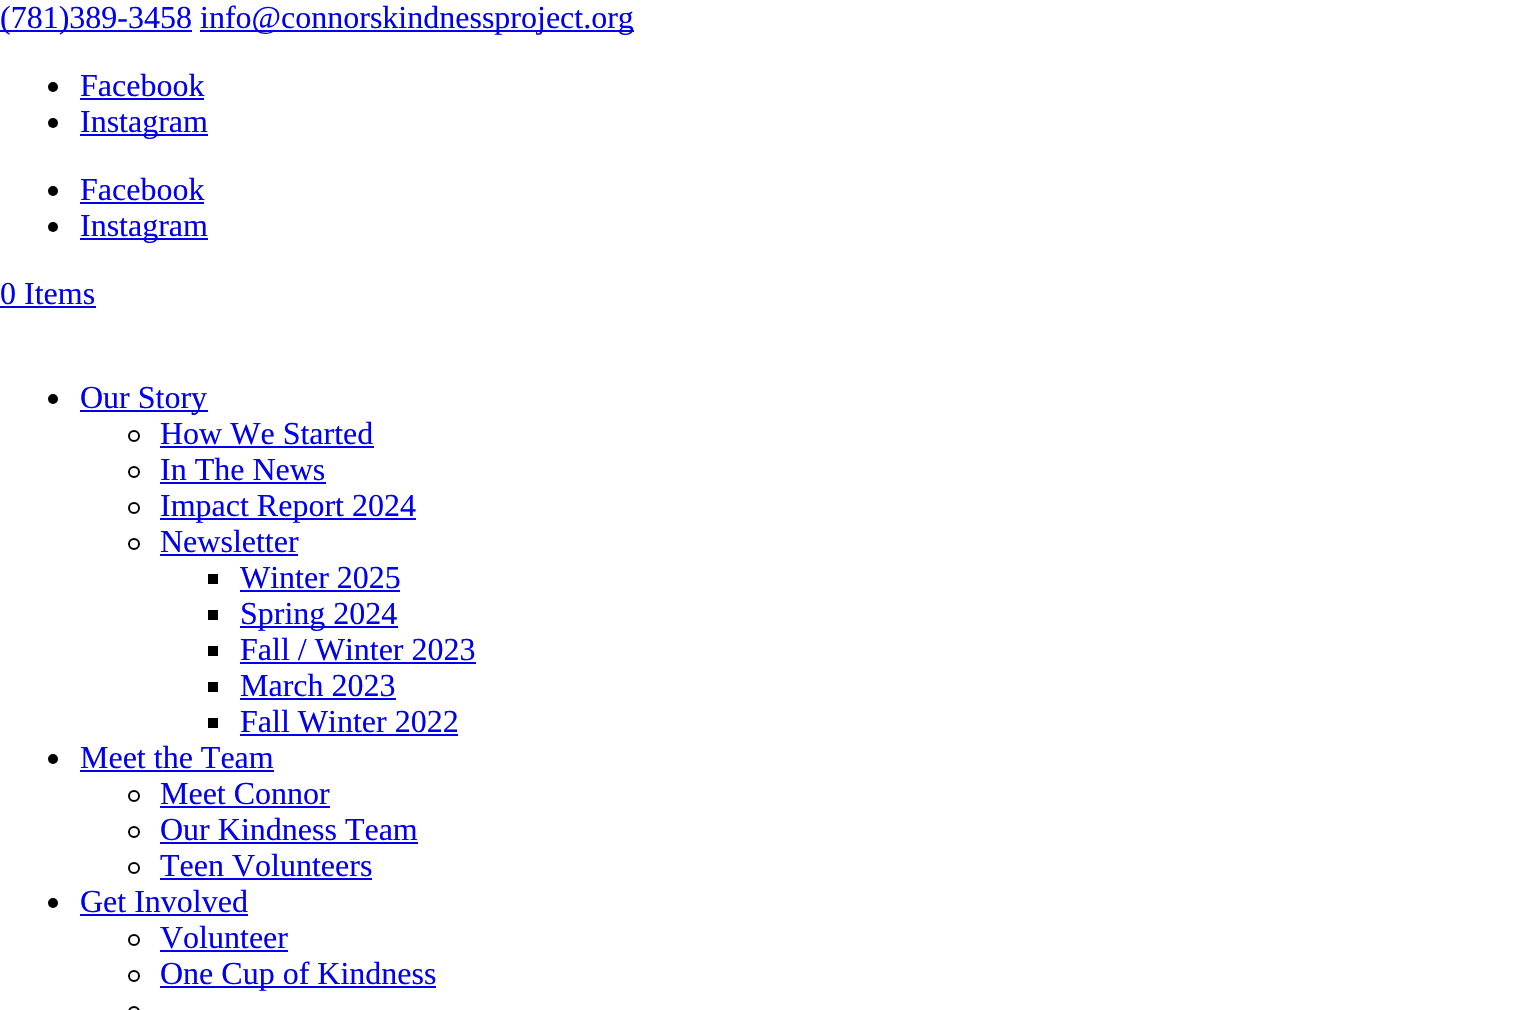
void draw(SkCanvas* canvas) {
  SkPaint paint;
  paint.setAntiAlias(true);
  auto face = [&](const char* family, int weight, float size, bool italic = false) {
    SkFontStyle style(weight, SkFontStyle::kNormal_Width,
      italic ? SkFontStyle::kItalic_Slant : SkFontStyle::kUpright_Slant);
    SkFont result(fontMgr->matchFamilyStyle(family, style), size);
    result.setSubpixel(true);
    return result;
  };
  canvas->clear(0xffffffff);
  paint.setColor(0xff0000ee);
  canvas->drawRect(SkRect::MakeXYWH(0, 30, 192, 2), paint);
  canvas->drawRect(SkRect::MakeXYWH(200, 30, 434, 2), paint);
  paint.setColor(0xff000000);
  canvas->drawCircle(53, 87, 5, paint);
  paint.setColor(0xff0000ee);
  canvas->drawRect(SkRect::MakeXYWH(80, 98, 124, 2), paint);
  paint.setColor(0xff000000);
  canvas->drawCircle(53, 123, 5, paint);
  paint.setColor(0xff0000ee);
  canvas->drawRect(SkRect::MakeXYWH(80, 134, 128, 2), paint);
  paint.setColor(0xff000000);
  canvas->drawCircle(53, 191, 5, paint);
  paint.setColor(0xff0000ee);
  canvas->drawRect(SkRect::MakeXYWH(80, 202, 124, 2), paint);
  paint.setColor(0xff000000);
  canvas->drawCircle(53, 227, 5, paint);
  paint.setColor(0xff0000ee);
  canvas->drawRect(SkRect::MakeXYWH(80, 238, 128, 2), paint);
  canvas->drawRect(SkRect::MakeXYWH(0, 306, 96, 2), paint);
  paint.setColor(0xff000000);
  canvas->drawCircle(53, 399, 5, paint);
  paint.setColor(0xff0000ee);
  canvas->drawRect(SkRect::MakeXYWH(80, 410, 128, 2), paint);
  paint.setStroke(true);
  paint.setStrokeWidth(2);
  paint.setColor(0xff000000);
  canvas->drawCircle(134, 436, 5, paint);
  paint.setStroke(false);
  paint.setColor(0xff0000ee);
  canvas->drawRect(SkRect::MakeXYWH(160, 446, 214, 2), paint);
  paint.setStroke(true);
  paint.setColor(0xff000000);
  canvas->drawCircle(134, 472, 5, paint);
  paint.setStroke(false);
  paint.setColor(0xff0000ee);
  canvas->drawRect(SkRect::MakeXYWH(160, 482, 166, 2), paint);
  paint.setStroke(true);
  paint.setColor(0xff000000);
  canvas->drawCircle(134, 508, 5, paint);
  paint.setStroke(false);
  paint.setColor(0xff0000ee);
  canvas->drawRect(SkRect::MakeXYWH(160, 518, 256, 2), paint);
  paint.setStroke(true);
  paint.setColor(0xff000000);
  canvas->drawCircle(134, 544, 5, paint);
  paint.setStroke(false);
  {
    const struct { float x, y, w, h; SkColor color; } items[] = {
      {160, 554, 138, 2, 0xff0000ee},
      {208, 574, 10, 10, 0xff000000},
      {240, 590, 160, 2, 0xff0000ee},
      {208, 610, 10, 10, 0xff000000},
      {240, 626, 158, 2, 0xff0000ee},
      {208, 646, 10, 10, 0xff000000},
      {240, 662, 236, 2, 0xff0000ee},
      {208, 682, 10, 10, 0xff000000},
      {240, 698, 156, 2, 0xff0000ee},
      {208, 718, 10, 10, 0xff000000},
      {240, 734, 218, 2, 0xff0000ee},
    };
    for (auto [x, y, w, h, color] : items) {
      paint.setColor(color);
      canvas->drawRect(SkRect::MakeXYWH(x, y, w, h), paint);
    }
  }
  paint.setColor(0xff000000);
  canvas->drawCircle(53, 759, 5, paint);
  paint.setColor(0xff0000ee);
  canvas->drawRect(SkRect::MakeXYWH(80, 770, 194, 2), paint);
  paint.setStroke(true);
  paint.setColor(0xff000000);
  canvas->drawCircle(134, 796, 5, paint);
  paint.setStroke(false);
  paint.setColor(0xff0000ee);
  canvas->drawRect(SkRect::MakeXYWH(160, 806, 170, 2), paint);
  paint.setStroke(true);
  paint.setColor(0xff000000);
  canvas->drawCircle(134, 832, 5, paint);
  paint.setStroke(false);
  paint.setColor(0xff0000ee);
  canvas->drawRect(SkRect::MakeXYWH(160, 842, 258, 2), paint);
  paint.setStroke(true);
  paint.setColor(0xff000000);
  canvas->drawCircle(134, 868, 5, paint);
  paint.setStroke(false);
  paint.setColor(0xff0000ee);
  canvas->drawRect(SkRect::MakeXYWH(160, 878, 212, 2), paint);
  paint.setColor(0xff000000);
  canvas->drawCircle(53, 903, 5, paint);
  paint.setColor(0xff0000ee);
  canvas->drawRect(SkRect::MakeXYWH(80, 914, 168, 2), paint);
  paint.setStroke(true);
  paint.setColor(0xff000000);
  canvas->drawCircle(134, 940, 5, paint);
  paint.setStroke(false);
  paint.setColor(0xff0000ee);
  canvas->drawRect(SkRect::MakeXYWH(160, 950, 128, 2), paint);
  paint.setStroke(true);
  paint.setColor(0xff000000);
  canvas->drawCircle(134, 976, 5, paint);
  paint.setStroke(false);
  paint.setColor(0xff0000ee);
  canvas->drawRect(SkRect::MakeXYWH(160, 986, 276, 2), paint);
  paint.setStroke(true);
  paint.setColor(0xff000000);
  canvas->drawCircle(134, 1012, 5, paint);
  auto f0 = face("Liberation Serif", 400, 32);
  paint.setStroke(false);
  paint.setColor(0xff0000ee);
  {
    const struct { const char* s; float x, y; } items[] = {
      {"(781)389-3458", 0, 28},
      {"info@connorskindnessproject.org", 200, 28},
      {"Facebook", 80, 96},
      {"Instagram", 80, 132},
      {"Facebook", 80, 200},
      {"Instagram", 80, 236},
      {"0 Items", 0, 304},
      {"Our Story", 80, 408},
      {"How We Started", 160, 444},
      {"In The News", 160, 480},
      {"Impact Report 2024", 160, 516},
      {"Newsletter", 160, 552},
      {"Winter 2025", 240, 588},
      {"Spring 2024", 240, 624},
      {"Fall / Winter 2023", 240, 660},
      {"March 2023", 240, 696},
      {"Fall Winter 2022", 240, 732},
      {"Meet the Team", 80, 768},
      {"Meet Connor", 160, 804},
      {"Our Kindness Team", 160, 840},
      {"Teen Volunteers", 160, 876},
      {"Get Involved", 80, 912},
      {"Volunteer", 160, 948},
      {"One Cup of Kindness", 160, 984},
    };
    for (auto [s, x, y] : items) {
      canvas->drawString(s, x, y, f0, paint);
    }
  }
}
